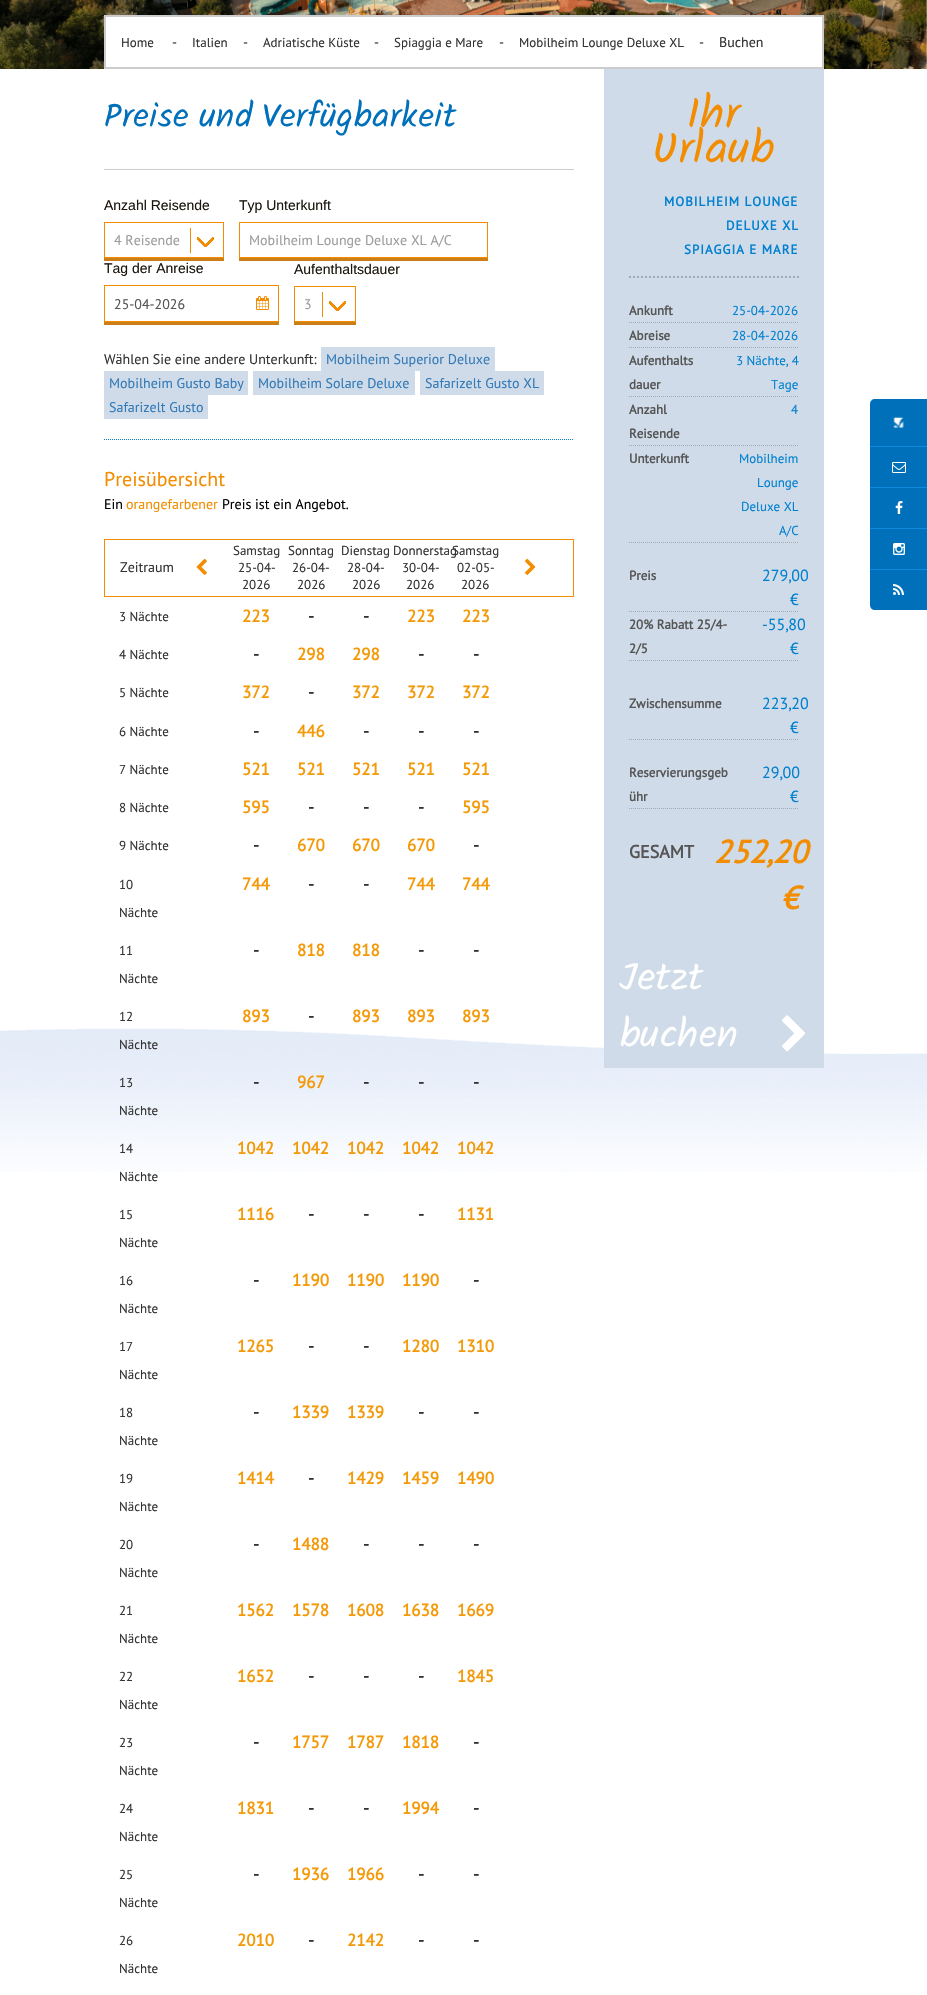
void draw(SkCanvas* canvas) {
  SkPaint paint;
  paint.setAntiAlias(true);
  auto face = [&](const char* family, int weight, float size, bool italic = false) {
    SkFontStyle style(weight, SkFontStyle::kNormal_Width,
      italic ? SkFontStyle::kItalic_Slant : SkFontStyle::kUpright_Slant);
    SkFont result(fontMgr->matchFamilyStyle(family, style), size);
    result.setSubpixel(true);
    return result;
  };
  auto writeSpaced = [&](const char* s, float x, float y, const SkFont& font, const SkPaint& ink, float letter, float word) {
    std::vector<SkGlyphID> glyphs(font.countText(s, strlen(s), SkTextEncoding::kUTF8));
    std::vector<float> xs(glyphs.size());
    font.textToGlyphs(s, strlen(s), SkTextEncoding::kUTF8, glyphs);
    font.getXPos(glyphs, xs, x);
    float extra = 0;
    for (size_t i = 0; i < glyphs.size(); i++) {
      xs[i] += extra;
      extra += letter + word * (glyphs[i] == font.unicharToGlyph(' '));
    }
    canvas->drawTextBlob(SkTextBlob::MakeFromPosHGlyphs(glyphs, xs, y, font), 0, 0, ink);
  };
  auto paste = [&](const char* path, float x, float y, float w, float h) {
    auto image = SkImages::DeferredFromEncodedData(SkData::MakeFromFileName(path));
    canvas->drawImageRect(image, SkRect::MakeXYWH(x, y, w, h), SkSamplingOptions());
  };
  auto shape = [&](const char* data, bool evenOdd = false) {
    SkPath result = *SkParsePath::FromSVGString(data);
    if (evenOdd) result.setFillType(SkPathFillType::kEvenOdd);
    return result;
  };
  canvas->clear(0xffffffff);
  paste("img/1.png", 0, 0, 927, 69);
  paste("img/2.png", 0, 1028, 927, 144);
  paint.setColor(0xffffffff);
  canvas->drawRect(SkRect::MakeXYWH(105, 16, 718, 52), paint);
  paint.setStroke(true);
  paint.setStrokeWidth(2);
  paint.setColor(0xffcccccc);
  canvas->drawRect(SkRect::MakeXYWH(105, 16, 718, 52), paint);
  paint.setStroke(false);
  canvas->drawRect(SkRect::MakeXYWH(104, 169, 470, 1), paint);
  paint.setColor(0xffcc7f16);
  canvas->drawRect(SkRect::MakeXYWH(104, 258, 120, 3), paint);
  paste("img/3.png", 190, 228, 24, 25);
  paint.setStroke(true);
  paint.setStrokeWidth(1);
  paint.setColor(0xfff28c00);
  canvas->drawRect(SkRect::MakeXYWH(104.5f, 222.5f, 119, 35), paint);
  paint.setStroke(false);
  paint.setColor(0xffcc7f16);
  canvas->drawRect(SkRect::MakeXYWH(239, 258, 249, 3), paint);
  paint.setStroke(true);
  paint.setColor(0xfff28c00);
  canvas->drawRect(SkRect::MakeXYWH(239.5f, 222.5f, 248, 35), paint);
  paint.setStroke(false);
  paint.setColor(0xffcc7f16);
  canvas->drawRect(SkRect::MakeXYWH(104, 322, 175, 3), paint);
  paste("img/4.png", 256, 296, 13, 14);
  paint.setStroke(true);
  paint.setColor(0xfff28c00);
  canvas->drawRect(SkRect::MakeXYWH(104.5f, 285.5f, 174, 36), paint);
  paint.setStroke(false);
  paint.setColor(0xffcc7f16);
  canvas->drawRect(SkRect::MakeXYWH(294, 322, 62, 3), paint);
  paste("img/3.png", 322, 292, 24, 25);
  paint.setStroke(true);
  paint.setColor(0xfff28c00);
  canvas->drawRect(SkRect::MakeXYWH(294.5f, 286.5f, 61, 35), paint);
  paint.setStroke(false);
  {
    const struct { float x, y, w, h; SkColor color; } items[] = {
      {321, 347, 174, 24, 0xffcfdbe8},
      {104, 371, 144, 24, 0xffcfdbe8},
      {253, 371, 162, 24, 0xffcfdbe8},
      {420, 371, 124, 24, 0xffcfdbe8},
      {104, 395, 104, 24, 0xffcfdbe8},
    };
    for (auto [x, y, w, h, color] : items) {
      paint.setColor(color);
      canvas->drawRect(SkRect::MakeXYWH(x, y, w, h), paint);
    }
  }
  paint.setStroke(true);
  paint.setColor(0xff007eca);
  paint.setPathEffect(SkDashPathEffect::Make({{1, 1}}, 0));
  canvas->drawPath(shape("M104 439.5H574"), paint);
  paint.setPathEffect(nullptr);
  paint.setColor(0xfff28c00);
  canvas->drawRect(SkRect::MakeXYWH(104.5f, 539.5f, 469, 57), paint);
  paste("img/5.png", 196, 558, 11, 17);
  paste("img/6.png", 524, 558, 12, 17);
  paint.setStroke(false);
  paint.setColor(0xffcfdbe8);
  canvas->drawRect(SkRect::MakeXYWH(604, 69, 220, 999), paint);
  paint.setStroke(true);
  paint.setStrokeWidth(2);
  paint.setColor(0xff9faab3);
  paint.setPathEffect(SkDashPathEffect::Make({{2, 2}}, 0));
  canvas->drawPath(shape("M629 277H799"), paint);
  paint.setPathEffect(nullptr);
  paint.setStrokeWidth(1);
  paint.setPathEffect(SkDashPathEffect::Make({{1, 1}}, 0));
  canvas->drawPath(shape("M629 322.5H799"), paint);
  paint.setPathEffect(nullptr);
  paint.setPathEffect(SkDashPathEffect::Make({{1, 1}}, 0));
  canvas->drawPath(shape("M629 347.5H799"), paint);
  paint.setPathEffect(nullptr);
  paint.setPathEffect(SkDashPathEffect::Make({{1, 1}}, 0));
  canvas->drawPath(shape("M629 396.5H799"), paint);
  paint.setPathEffect(nullptr);
  paint.setPathEffect(SkDashPathEffect::Make({{1, 1}}, 0));
  canvas->drawPath(shape("M629 445.5H799"), paint);
  paint.setPathEffect(nullptr);
  paint.setPathEffect(SkDashPathEffect::Make({{1, 1}}, 0));
  canvas->drawPath(shape("M629 542.5H799"), paint);
  paint.setPathEffect(nullptr);
  paint.setPathEffect(SkDashPathEffect::Make({{1, 1}}, 0));
  canvas->drawPath(shape("M629 611.5H799"), paint);
  paint.setPathEffect(nullptr);
  paint.setPathEffect(SkDashPathEffect::Make({{1, 1}}, 0));
  canvas->drawPath(shape("M629 660.5H799"), paint);
  paint.setPathEffect(nullptr);
  paint.setPathEffect(SkDashPathEffect::Make({{1, 1}}, 0));
  canvas->drawPath(shape("M629 739.5H799"), paint);
  paint.setPathEffect(nullptr);
  paint.setPathEffect(SkDashPathEffect::Make({{1, 1}}, 0));
  canvas->drawPath(shape("M629 808.5H799"), paint);
  paint.setPathEffect(nullptr);
  paste("img/7.png", 782, 1015, 23, 37);
  paint.setStroke(false);
  paint.setColor(0xff0070ba);
  canvas->drawPath(shape("M875 399H927V610H875C872 610 870 608 870 605V404C870 401 872 399 875 399Z"), paint);
  paint.setColor(0xff0c8ade);
  canvas->drawRect(SkRect::MakeXYWH(870, 446, 57, 1), paint);
  paste("img/8.png", 893, 416, 11, 13);
  canvas->drawRect(SkRect::MakeXYWH(870, 487, 57, 1), paint);
  paste("img/9.png", 892, 462, 14, 11);
  canvas->drawRect(SkRect::MakeXYWH(870, 528, 57, 1), paint);
  paste("img/10.png", 895, 501, 8, 13);
  canvas->drawRect(SkRect::MakeXYWH(870, 569, 57, 1), paint);
  paste("img/11.png", 893, 543, 12, 12);
  paste("img/12.png", 893, 584, 11, 11);
  auto f0 = face("PT Sans", 400, 13);
  paint.setColor(0xff333333);
  canvas->drawString("Home", 121, 47, f0, paint);
  auto f1 = face("PT Sans", 400, 14);
  canvas->drawString("-", 172, 47, f1, paint);
  canvas->drawString("Italien", 192, 47, f0, paint);
  canvas->drawString("-", 243, 47, f1, paint);
  canvas->drawString("Adriatische Küste", 263, 47, f0, paint);
  canvas->drawString("-", 374, 47, f1, paint);
  canvas->drawString("Spiaggia e Mare", 394, 47, f0, paint);
  canvas->drawString("-", 499, 47, f1, paint);
  canvas->drawString("Mobilheim Lounge Deluxe XL", 519, 47, f0, paint);
  canvas->drawString("-", 699, 47, f1, paint);
  canvas->drawString("Buchen", 719, 47, f1, paint);
  auto f2 = face("Kalam", 400, 35);
  paint.setColor(0xff0070ba);
  canvas->drawString("Preise und Verfügbarkeit", 104, 127, f2, paint);
  auto f3 = face("Liberation Sans", 400, 14);
  paint.setColor(0xff1c160f);
  canvas->drawString("Anzahl Reisende", 104, 210, f3, paint);
  paint.setColor(0xff9c9c9c);
  canvas->drawString("4 Reisende", 114, 245, f1, paint);
  paint.setColor(0xff1c160f);
  canvas->drawString("Typ Unterkunft", 239, 210, f3, paint);
  paint.setColor(0xff9c9c9c);
  canvas->drawString("Mobilheim Lounge Deluxe XL A/C", 249, 245, f1, paint);
  paint.setColor(0xff1c160f);
  canvas->drawString("Tag der Anreise", 104, 273, f3, paint);
  paint.setColor(0xff555555);
  canvas->drawString("25-04-2026", 114, 309, f1, paint);
  paint.setColor(0xff1c160f);
  canvas->drawString("Aufenthaltsdauer", 294, 274, f3, paint);
  paint.setColor(0xff9c9c9c);
  canvas->drawString("3", 304, 309, f1, paint);
  paint.setColor(0xff333333);
  canvas->drawString("Wählen Sie eine andere Unterkunft:", 104, 364, f1, paint);
  paint.setColor(0xff337ab7);
  {
    const struct { const char* s; float x, y; } items[] = {
      {"Mobilheim Superior Deluxe", 326, 364},
      {"Mobilheim Gusto Baby", 109, 388},
      {"Mobilheim Solare Deluxe", 258, 388},
      {"Safarizelt Gusto XL", 425, 388},
      {"Safarizelt Gusto", 109, 412},
    };
    for (auto [s, x, y] : items) {
      canvas->drawString(s, x, y, f1, paint);
    }
  }
  auto f4 = face("PT Sans", 400, 20);
  paint.setColor(0xfff28c00);
  canvas->drawString("Preisübersicht", 104, 486, f4, paint);
  paint.setColor(0xff000000);
  canvas->drawString("Ein", 104, 509, f1, paint);
  paint.setColor(0xfff28c00);
  canvas->drawString("orangefarbener", 126, 509, f1, paint);
  paint.setColor(0xff000000);
  canvas->drawString("Preis ist ein Angebot.", 222, 509, f1, paint);
  paint.setColor(0xff333333);
  canvas->drawString("Zeitraum", 120, 572, f1, paint);
  {
    const struct { const char* s; float x, y; } items[] = {
      {"Samstag", 233, 555},
      {"25-04-", 238, 572},
      {"2026", 242, 589},
      {"Sonntag", 288, 555},
      {"26-04-", 292, 572},
      {"2026", 297, 589},
      {"Dienstag", 341, 555},
      {"28-04-", 347, 572},
      {"2026", 352, 589},
      {"Donnerstag", 393, 555},
      {"30-04-", 402, 572},
      {"2026", 406, 589},
      {"Samstag", 452, 555},
      {"02-05-", 457, 572},
      {"2026", 461, 589},
      {"3 Nächte", 119, 621},
    };
    for (auto [s, x, y] : items) {
      canvas->drawString(s, x, y, f0, paint);
    }
  }
  auto f5 = face("PT Sans", 700, 17);
  paint.setColor(0xfff49a09);
  canvas->drawString("223", 242, 622, f5, paint);
  paint.setColor(0xff333333);
  canvas->drawString("-", 308, 622, f5, paint);
  canvas->drawString("-", 363, 622, f5, paint);
  paint.setColor(0xfff49a09);
  canvas->drawString("223", 407, 622, f5, paint);
  canvas->drawString("223", 462, 622, f5, paint);
  paint.setColor(0xff333333);
  canvas->drawString("4 Nächte", 119, 659, f0, paint);
  canvas->drawString("-", 253, 660, f5, paint);
  paint.setColor(0xfff49a09);
  canvas->drawString("298", 297, 660, f5, paint);
  canvas->drawString("298", 352, 660, f5, paint);
  paint.setColor(0xff333333);
  canvas->drawString("-", 418, 660, f5, paint);
  canvas->drawString("-", 473, 660, f5, paint);
  canvas->drawString("5 Nächte", 119, 697, f0, paint);
  paint.setColor(0xfff49a09);
  canvas->drawString("372", 242, 698, f5, paint);
  paint.setColor(0xff333333);
  canvas->drawString("-", 308, 698, f5, paint);
  paint.setColor(0xfff49a09);
  {
    const struct { const char* s; float x, y; } items[] = {
      {"372", 352, 698},
      {"372", 407, 698},
      {"372", 462, 698},
    };
    for (auto [s, x, y] : items) {
      canvas->drawString(s, x, y, f5, paint);
    }
  }
  paint.setColor(0xff333333);
  canvas->drawString("6 Nächte", 119, 736, f0, paint);
  canvas->drawString("-", 253, 737, f5, paint);
  paint.setColor(0xfff49a09);
  canvas->drawString("446", 297, 737, f5, paint);
  paint.setColor(0xff333333);
  {
    const struct { const char* s; float x, y; } items[] = {
      {"-", 363, 737},
      {"-", 418, 737},
      {"-", 473, 737},
    };
    for (auto [s, x, y] : items) {
      canvas->drawString(s, x, y, f5, paint);
    }
  }
  canvas->drawString("7 Nächte", 119, 774, f0, paint);
  paint.setColor(0xfff49a09);
  {
    const struct { const char* s; float x, y; } items[] = {
      {"521", 242, 775},
      {"521", 297, 775},
      {"521", 352, 775},
      {"521", 407, 775},
      {"521", 462, 775},
    };
    for (auto [s, x, y] : items) {
      canvas->drawString(s, x, y, f5, paint);
    }
  }
  paint.setColor(0xff333333);
  canvas->drawString("8 Nächte", 119, 812, f0, paint);
  paint.setColor(0xfff49a09);
  canvas->drawString("595", 242, 813, f5, paint);
  paint.setColor(0xff333333);
  {
    const struct { const char* s; float x, y; } items[] = {
      {"-", 308, 813},
      {"-", 363, 813},
      {"-", 418, 813},
    };
    for (auto [s, x, y] : items) {
      canvas->drawString(s, x, y, f5, paint);
    }
  }
  paint.setColor(0xfff49a09);
  canvas->drawString("595", 462, 813, f5, paint);
  paint.setColor(0xff333333);
  canvas->drawString("9 Nächte", 119, 850, f0, paint);
  canvas->drawString("-", 253, 851, f5, paint);
  paint.setColor(0xfff49a09);
  {
    const struct { const char* s; float x, y; } items[] = {
      {"670", 297, 851},
      {"670", 352, 851},
      {"670", 407, 851},
    };
    for (auto [s, x, y] : items) {
      canvas->drawString(s, x, y, f5, paint);
    }
  }
  paint.setColor(0xff333333);
  canvas->drawString("-", 473, 851, f5, paint);
  canvas->drawString("10", 119, 889, f0, paint);
  canvas->drawString("Nächte", 119, 917, f0, paint);
  paint.setColor(0xfff49a09);
  canvas->drawString("744", 242, 890, f5, paint);
  paint.setColor(0xff333333);
  canvas->drawString("-", 308, 890, f5, paint);
  canvas->drawString("-", 363, 890, f5, paint);
  paint.setColor(0xfff49a09);
  canvas->drawString("744", 407, 890, f5, paint);
  canvas->drawString("744", 462, 890, f5, paint);
  paint.setColor(0xff333333);
  canvas->drawString("11", 119, 955, f0, paint);
  canvas->drawString("Nächte", 119, 983, f0, paint);
  canvas->drawString("-", 253, 956, f5, paint);
  paint.setColor(0xfff49a09);
  canvas->drawString("818", 297, 956, f5, paint);
  canvas->drawString("818", 352, 956, f5, paint);
  paint.setColor(0xff333333);
  canvas->drawString("-", 418, 956, f5, paint);
  canvas->drawString("-", 473, 956, f5, paint);
  canvas->drawString("12", 119, 1021, f0, paint);
  canvas->drawString("Nächte", 119, 1049, f0, paint);
  paint.setColor(0xfff49a09);
  canvas->drawString("893", 242, 1022, f5, paint);
  paint.setColor(0xff333333);
  canvas->drawString("-", 308, 1022, f5, paint);
  paint.setColor(0xfff49a09);
  {
    const struct { const char* s; float x, y; } items[] = {
      {"893", 352, 1022},
      {"893", 407, 1022},
      {"893", 462, 1022},
    };
    for (auto [s, x, y] : items) {
      canvas->drawString(s, x, y, f5, paint);
    }
  }
  paint.setColor(0xff333333);
  canvas->drawString("13", 119, 1087, f0, paint);
  canvas->drawString("Nächte", 119, 1115, f0, paint);
  canvas->drawString("-", 253, 1088, f5, paint);
  paint.setColor(0xfff49a09);
  canvas->drawString("967", 297, 1088, f5, paint);
  paint.setColor(0xff333333);
  {
    const struct { const char* s; float x, y; } items[] = {
      {"-", 363, 1088},
      {"-", 418, 1088},
      {"-", 473, 1088},
    };
    for (auto [s, x, y] : items) {
      canvas->drawString(s, x, y, f5, paint);
    }
  }
  canvas->drawString("14", 119, 1153, f0, paint);
  canvas->drawString("Nächte", 119, 1181, f0, paint);
  paint.setColor(0xfff49a09);
  {
    const struct { const char* s; float x, y; } items[] = {
      {"1042", 237, 1154},
      {"1042", 292, 1154},
      {"1042", 347, 1154},
      {"1042", 402, 1154},
      {"1042", 457, 1154},
    };
    for (auto [s, x, y] : items) {
      canvas->drawString(s, x, y, f5, paint);
    }
  }
  paint.setColor(0xff333333);
  canvas->drawString("15", 119, 1219, f0, paint);
  canvas->drawString("Nächte", 119, 1247, f0, paint);
  paint.setColor(0xfff49a09);
  canvas->drawString("1116", 237, 1220, f5, paint);
  paint.setColor(0xff333333);
  {
    const struct { const char* s; float x, y; } items[] = {
      {"-", 308, 1220},
      {"-", 363, 1220},
      {"-", 418, 1220},
    };
    for (auto [s, x, y] : items) {
      canvas->drawString(s, x, y, f5, paint);
    }
  }
  paint.setColor(0xfff49a09);
  canvas->drawString("1131", 457, 1220, f5, paint);
  paint.setColor(0xff333333);
  canvas->drawString("16", 119, 1285, f0, paint);
  canvas->drawString("Nächte", 119, 1313, f0, paint);
  canvas->drawString("-", 253, 1286, f5, paint);
  paint.setColor(0xfff49a09);
  {
    const struct { const char* s; float x, y; } items[] = {
      {"1190", 292, 1286},
      {"1190", 347, 1286},
      {"1190", 402, 1286},
    };
    for (auto [s, x, y] : items) {
      canvas->drawString(s, x, y, f5, paint);
    }
  }
  paint.setColor(0xff333333);
  canvas->drawString("-", 473, 1286, f5, paint);
  canvas->drawString("17", 119, 1351, f0, paint);
  canvas->drawString("Nächte", 119, 1379, f0, paint);
  paint.setColor(0xfff49a09);
  canvas->drawString("1265", 237, 1352, f5, paint);
  paint.setColor(0xff333333);
  canvas->drawString("-", 308, 1352, f5, paint);
  canvas->drawString("-", 363, 1352, f5, paint);
  paint.setColor(0xfff49a09);
  canvas->drawString("1280", 402, 1352, f5, paint);
  canvas->drawString("1310", 457, 1352, f5, paint);
  paint.setColor(0xff333333);
  canvas->drawString("18", 119, 1417, f0, paint);
  canvas->drawString("Nächte", 119, 1445, f0, paint);
  canvas->drawString("-", 253, 1418, f5, paint);
  paint.setColor(0xfff49a09);
  canvas->drawString("1339", 292, 1418, f5, paint);
  canvas->drawString("1339", 347, 1418, f5, paint);
  paint.setColor(0xff333333);
  canvas->drawString("-", 418, 1418, f5, paint);
  canvas->drawString("-", 473, 1418, f5, paint);
  canvas->drawString("19", 119, 1483, f0, paint);
  canvas->drawString("Nächte", 119, 1511, f0, paint);
  paint.setColor(0xfff49a09);
  canvas->drawString("1414", 237, 1484, f5, paint);
  paint.setColor(0xff333333);
  canvas->drawString("-", 308, 1484, f5, paint);
  paint.setColor(0xfff49a09);
  {
    const struct { const char* s; float x, y; } items[] = {
      {"1429", 347, 1484},
      {"1459", 402, 1484},
      {"1490", 457, 1484},
    };
    for (auto [s, x, y] : items) {
      canvas->drawString(s, x, y, f5, paint);
    }
  }
  paint.setColor(0xff333333);
  canvas->drawString("20", 119, 1549, f0, paint);
  canvas->drawString("Nächte", 119, 1577, f0, paint);
  canvas->drawString("-", 253, 1550, f5, paint);
  paint.setColor(0xfff49a09);
  canvas->drawString("1488", 292, 1550, f5, paint);
  paint.setColor(0xff333333);
  {
    const struct { const char* s; float x, y; } items[] = {
      {"-", 363, 1550},
      {"-", 418, 1550},
      {"-", 473, 1550},
    };
    for (auto [s, x, y] : items) {
      canvas->drawString(s, x, y, f5, paint);
    }
  }
  canvas->drawString("21", 119, 1615, f0, paint);
  canvas->drawString("Nächte", 119, 1643, f0, paint);
  paint.setColor(0xfff49a09);
  {
    const struct { const char* s; float x, y; } items[] = {
      {"1562", 237, 1616},
      {"1578", 292, 1616},
      {"1608", 347, 1616},
      {"1638", 402, 1616},
      {"1669", 457, 1616},
    };
    for (auto [s, x, y] : items) {
      canvas->drawString(s, x, y, f5, paint);
    }
  }
  paint.setColor(0xff333333);
  canvas->drawString("22", 119, 1681, f0, paint);
  canvas->drawString("Nächte", 119, 1709, f0, paint);
  paint.setColor(0xfff49a09);
  canvas->drawString("1652", 237, 1682, f5, paint);
  paint.setColor(0xff333333);
  {
    const struct { const char* s; float x, y; } items[] = {
      {"-", 308, 1682},
      {"-", 363, 1682},
      {"-", 418, 1682},
    };
    for (auto [s, x, y] : items) {
      canvas->drawString(s, x, y, f5, paint);
    }
  }
  paint.setColor(0xfff49a09);
  canvas->drawString("1845", 457, 1682, f5, paint);
  paint.setColor(0xff333333);
  canvas->drawString("23", 119, 1747, f0, paint);
  canvas->drawString("Nächte", 119, 1775, f0, paint);
  canvas->drawString("-", 253, 1748, f5, paint);
  paint.setColor(0xfff49a09);
  {
    const struct { const char* s; float x, y; } items[] = {
      {"1757", 292, 1748},
      {"1787", 347, 1748},
      {"1818", 402, 1748},
    };
    for (auto [s, x, y] : items) {
      canvas->drawString(s, x, y, f5, paint);
    }
  }
  paint.setColor(0xff333333);
  canvas->drawString("-", 473, 1748, f5, paint);
  canvas->drawString("24", 119, 1813, f0, paint);
  canvas->drawString("Nächte", 119, 1841, f0, paint);
  paint.setColor(0xfff49a09);
  canvas->drawString("1831", 237, 1814, f5, paint);
  paint.setColor(0xff333333);
  canvas->drawString("-", 308, 1814, f5, paint);
  canvas->drawString("-", 363, 1814, f5, paint);
  paint.setColor(0xfff49a09);
  canvas->drawString("1994", 402, 1814, f5, paint);
  paint.setColor(0xff333333);
  canvas->drawString("-", 473, 1814, f5, paint);
  canvas->drawString("25", 119, 1879, f0, paint);
  canvas->drawString("Nächte", 119, 1907, f0, paint);
  canvas->drawString("-", 253, 1880, f5, paint);
  paint.setColor(0xfff49a09);
  canvas->drawString("1936", 292, 1880, f5, paint);
  canvas->drawString("1966", 347, 1880, f5, paint);
  paint.setColor(0xff333333);
  canvas->drawString("-", 418, 1880, f5, paint);
  canvas->drawString("-", 473, 1880, f5, paint);
  canvas->drawString("26", 119, 1945, f0, paint);
  canvas->drawString("Nächte", 119, 1973, f0, paint);
  paint.setColor(0xfff49a09);
  canvas->drawString("2010", 237, 1946, f5, paint);
  paint.setColor(0xff333333);
  canvas->drawString("-", 308, 1946, f5, paint);
  paint.setColor(0xfff49a09);
  canvas->drawString("2142", 347, 1946, f5, paint);
  paint.setColor(0xff333333);
  canvas->drawString("-", 418, 1946, f5, paint);
  canvas->drawString("-", 473, 1946, f5, paint);
  auto f6 = face("Kalam", 400, 46);
  paint.setColor(0xfff28c00);
  canvas->drawString("Ihr", 687, 128, f6, paint);
  canvas->drawString("Urlaub", 653, 163, f6, paint);
  auto f7 = face("PT Sans", 700, 13);
  paint.setColor(0xff0080cf);
  {
    const struct { const char* s; float x, y; } items[] = {
      {"MOBILHEIM LOUNGE", 664, 206},
      {"DELUXE XL", 726, 230},
      {"SPIAGGIA E MARE", 684, 254},
    };
    for (auto [s, x, y] : items) {
      writeSpaced(s, x, y, f7, paint, 1, 0);
    }
  }
  paint.setColor(0xff555555);
  canvas->drawString("Ankunft", 629, 315, f7, paint);
  paint.setColor(0xff0080cf);
  canvas->drawString("25-04-2026", 732, 315, f0, paint);
  paint.setColor(0xff555555);
  canvas->drawString("Abreise", 629, 340, f7, paint);
  paint.setColor(0xff0080cf);
  canvas->drawString("28-04-2026", 732, 340, f0, paint);
  paint.setColor(0xff555555);
  canvas->drawString("Aufenthalts", 629, 365, f7, paint);
  canvas->drawString("dauer", 629, 389, f7, paint);
  paint.setColor(0xff0080cf);
  canvas->drawString("3 Nächte, 4", 736, 365, f0, paint);
  canvas->drawString("Tage", 771, 389, f0, paint);
  paint.setColor(0xff555555);
  canvas->drawString("Anzahl", 629, 414, f7, paint);
  canvas->drawString("Reisende", 629, 438, f7, paint);
  paint.setColor(0xff0080cf);
  canvas->drawString("4", 791, 414, f0, paint);
  paint.setColor(0xff555555);
  canvas->drawString("Unterkunft", 629, 463, f7, paint);
  paint.setColor(0xff0080cf);
  {
    const struct { const char* s; float x, y; } items[] = {
      {"Mobilheim", 739, 463},
      {"Lounge", 757, 487},
      {"Deluxe XL", 741, 511},
      {"A/C", 779, 535},
    };
    for (auto [s, x, y] : items) {
      canvas->drawString(s, x, y, f0, paint);
    }
  }
  paint.setColor(0xff555555);
  canvas->drawString("Preis", 629, 580, f7, paint);
  auto f8 = face("PT Sans", 400, 16);
  paint.setColor(0xff0080cf);
  canvas->drawString("279,00", 762, 581, f8, paint);
  canvas->drawString("€", 790, 605, f8, paint);
  paint.setColor(0xff555555);
  canvas->drawString("20% Rabatt 25/4-", 629, 629, f7, paint);
  canvas->drawString("2/5", 629, 653, f7, paint);
  paint.setColor(0xff0080cf);
  canvas->drawString("-55,80", 762, 630, f8, paint);
  canvas->drawString("€", 790, 654, f8, paint);
  paint.setColor(0xff555555);
  canvas->drawString("Zwischensumme", 629, 708, f7, paint);
  paint.setColor(0xff0080cf);
  canvas->drawString("223,20", 762, 709, f8, paint);
  canvas->drawString("€", 790, 733, f8, paint);
  paint.setColor(0xff555555);
  canvas->drawString("Reservierungsgeb", 629, 777, f7, paint);
  canvas->drawString("ühr", 629, 801, f7, paint);
  paint.setColor(0xff0080cf);
  canvas->drawString("29,00", 762, 778, f8, paint);
  canvas->drawString("€", 790, 802, f8, paint);
  auto f9 = face("PT Sans", 700, 18);
  paint.setColor(0xff555555);
  canvas->drawString("GESAMT", 629, 858, f9, paint);
  auto f10 = face("PT Sans", 700, 32, true);
  paint.setColor(0xfff28c00);
  canvas->drawString("252,20", 714, 863, f10, paint);
  canvas->drawString("€", 781, 909, f10, paint);
  auto f11 = face("Kalam", 400, 40);
  paint.setColor(0xffffffff);
  canvas->drawString("Jetzt", 619, 990, f11, paint);
  canvas->drawString("buchen", 619, 1047, f11, paint);
}
